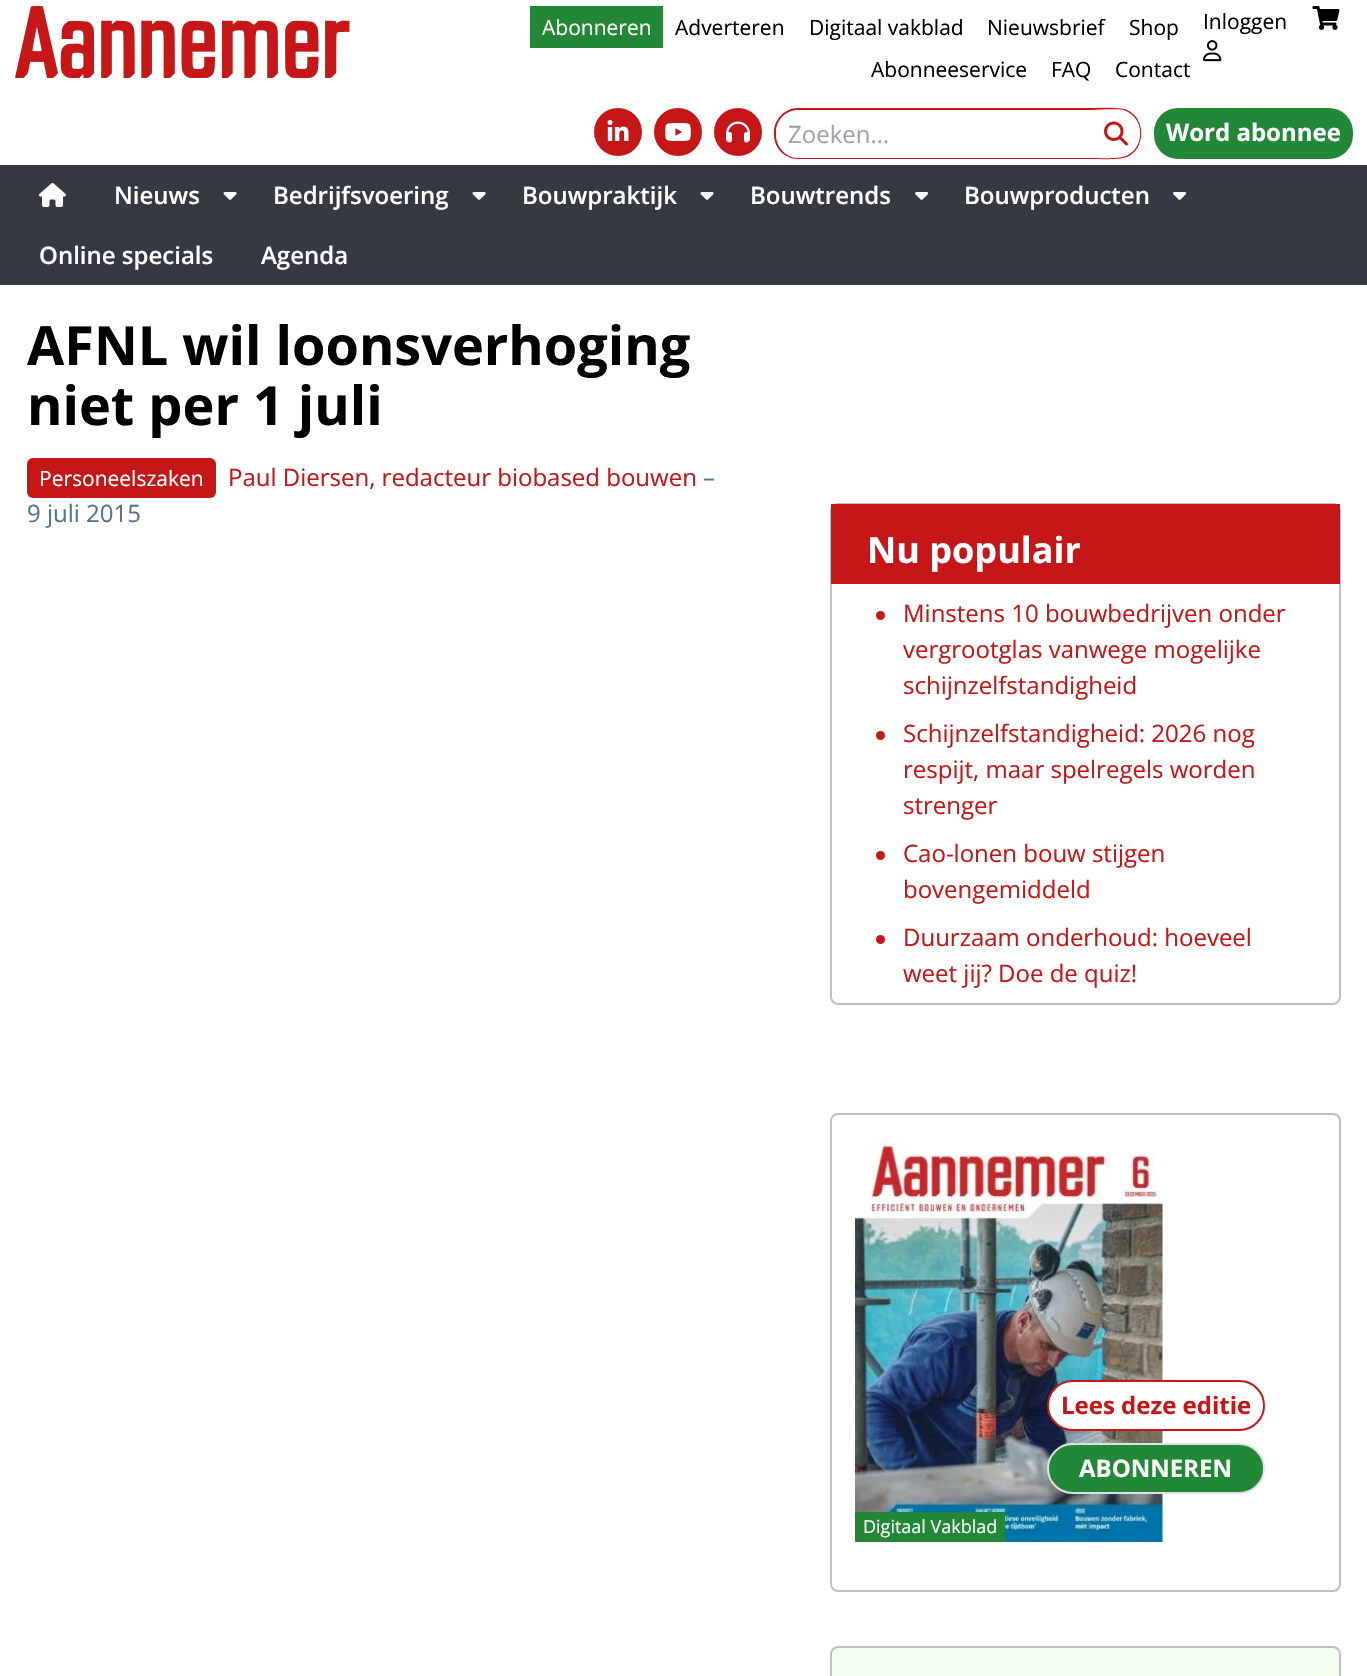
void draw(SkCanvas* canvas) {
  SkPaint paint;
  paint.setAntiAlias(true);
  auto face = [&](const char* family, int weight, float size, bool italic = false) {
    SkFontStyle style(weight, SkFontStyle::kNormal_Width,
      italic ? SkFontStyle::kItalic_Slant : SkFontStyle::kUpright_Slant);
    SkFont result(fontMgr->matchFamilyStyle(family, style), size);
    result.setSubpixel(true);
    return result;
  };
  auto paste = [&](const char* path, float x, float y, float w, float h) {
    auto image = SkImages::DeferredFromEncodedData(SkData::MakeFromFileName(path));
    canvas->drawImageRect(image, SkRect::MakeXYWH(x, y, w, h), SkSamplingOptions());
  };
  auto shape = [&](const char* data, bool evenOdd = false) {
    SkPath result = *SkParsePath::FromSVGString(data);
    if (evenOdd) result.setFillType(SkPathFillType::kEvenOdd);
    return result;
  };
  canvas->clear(0xffffffff);
  paste("img/1.png", 15, 6, 335, 72);
  paint.setColor(0xff228736);
  canvas->drawRect(SkRect::MakeXYWH(530, 6, 133, 42), paint);
  paste("img/2.png", 1203, 40, 19, 22);
  paste("img/3.png", 1312, 6, 28, 24);
  paint.setColor(0xffc51618);
  canvas->drawCircle(618, 132, 24, paint);
  paste("img/4.png", 607, 120, 22, 21);
  canvas->drawCircle(678, 132, 24, paint);
  paste("img/5.png", 665, 123, 26, 18);
  canvas->drawCircle(738, 132, 24, paint);
  paste("img/6.png", 726, 121, 24, 22);
  canvas->drawPath(shape("M798 108H1092V159H798C785 159 774 148 774 135V132C774 119 785 108 798 108ZM798 110H1092V158H798C786 158 776 147 776 135V132C776 120 786 110 798 110Z", true), paint);
  canvas->drawPath(shape("M1092 108C1101 108 1119 107 1127 110C1146 118 1146 149 1127 157C1119 160 1101 159 1092 159ZM1092 110C1101 110 1119 108 1126 111C1145 119 1145 148 1126 156C1119 159 1101 158 1092 158Z", true), paint);
  paste("img/7.png", 1104, 121, 24, 25);
  paint.setColor(0xff228736);
  canvas->drawRoundRect(SkRect::MakeXYWH(1154, 108, 199, 51), 24, 24, paint);
  paint.setColor(0xff343a40);
  canvas->drawRect(SkRect::MakeXYWH(0, 165, 1367, 120), paint);
  paste("img/8.png", 39, 183, 27, 24);
  paste("img/9.png", 223, 192, 14, 8);
  paste("img/9.png", 472, 192, 14, 8);
  paste("img/9.png", 700, 192, 14, 8);
  paste("img/10.png", 915, 192, 14, 8);
  paste("img/10.png", 1173, 192, 14, 8);
  paint.setColor(0xffc51618);
  canvas->drawRoundRect(SkRect::MakeXYWH(27, 458, 189, 40), 6, 6, paint);
  paint.setStroke(true);
  paint.setStrokeWidth(2);
  paint.setColor(0xffc0c0c0);
  canvas->drawRoundRect(SkRect::MakeXYWH(831, 504, 509, 500), 7, 7, paint);
  paint.setStroke(false);
  paint.setColor(0xffc51618);
  canvas->drawRect(SkRect::MakeXYWH(831, 504, 509, 80), paint);
  canvas->drawCircle(880.5f, 615.5f, 4.5f, paint);
  canvas->drawCircle(880.5f, 735.5f, 4.5f, paint);
  canvas->drawCircle(880.5f, 855.5f, 4.5f, paint);
  canvas->drawCircle(880.5f, 939.5f, 4.5f, paint);
  paint.setStroke(true);
  paint.setColor(0xffc0c0c0);
  canvas->drawRoundRect(SkRect::MakeXYWH(831, 1114, 509, 477), 7, 7, paint);
  paste("img/11.png", 855, 1138, 308, 404);
  paint.setStroke(false);
  paint.setColor(0xffffffff);
  canvas->drawRoundRect(SkRect::MakeXYWH(1048, 1381, 216, 49), 24.5f, 24.5f, paint);
  paint.setStroke(true);
  paint.setColor(0xffc51618);
  canvas->drawRoundRect(SkRect::MakeXYWH(1048, 1381, 216, 49), 24.5f, 24.5f, paint);
  paint.setStroke(false);
  paint.setColor(0xff228736);
  canvas->drawRoundRect(SkRect::MakeXYWH(1048, 1444, 216, 49), 24.5f, 24.5f, paint);
  paint.setStroke(true);
  paint.setColor(0xffdee2e6);
  canvas->drawRoundRect(SkRect::MakeXYWH(1048, 1444, 216, 49), 24.5f, 24.5f, paint);
  paint.setStroke(false);
  paint.setColor(0xff228736);
  canvas->drawRect(SkRect::MakeXYWH(855, 1512, 150, 30), paint);
  paint.setColor(0xfff4fef1);
  canvas->drawRoundRect(SkRect::MakeXYWH(831, 1647, 509, 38), 7, 7, paint);
  paint.setStroke(true);
  paint.setColor(0xffc0c0c0);
  canvas->drawRoundRect(SkRect::MakeXYWH(831, 1647, 509, 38), 7, 7, paint);
  auto f0 = face("Open Sans", 400, 21);
  paint.setStroke(false);
  paint.setColor(0xffffffff);
  canvas->drawString("Abonneren", 542, 35, f0, paint);
  paint.setColor(0xff000000);
  {
    const struct { const char* s; float x, y; } items[] = {
      {"Adverteren", 675, 35},
      {"Digitaal vakblad", 809, 35},
      {"Nieuwsbrief", 987, 35},
      {"Shop", 1129, 35},
      {"Abonneeservice", 871, 77},
      {"FAQ", 1051, 77},
      {"Contact", 1115, 77},
      {"Inloggen", 1203, 29},
    };
    for (auto [s, x, y] : items) {
      canvas->drawString(s, x, y, f0, paint);
    }
  }
  auto f1 = face("Open Sans", 400, 24);
  paint.setColor(0xff9ca3af);
  canvas->drawString("Zoeken…", 788, 143, f1, paint);
  auto f2 = face("Open Sans", 700, 24);
  paint.setColor(0xffffffff);
  canvas->drawString("Word abonnee", 1166, 141, f2, paint);
  auto f3 = face("Open Sans", 600, 24);
  {
    const struct { const char* s; float x, y; } items[] = {
      {"Nieuws", 114, 204},
      {"Bedrijfsvoering", 273, 204},
      {"Bouwpraktijk", 522, 204},
      {"Bouwtrends", 750, 204},
      {"Bouwproducten", 964, 204},
      {"Online specials", 39, 264},
      {"Agenda", 261, 264},
    };
    for (auto [s, x, y] : items) {
      canvas->drawString(s, x, y, f3, paint);
    }
  }
  auto f4 = face("Open Sans", 700, 54);
  paint.setColor(0xff000000);
  canvas->drawString("AFNL wil loonsverhoging", 27, 365, f4, paint);
  canvas->drawString("niet per 1 juli", 27, 425, f4, paint);
  paint.setColor(0xffffffff);
  canvas->drawString("Personeelszaken", 39, 486, f0, paint);
  paint.setColor(0xffc51618);
  canvas->drawString("Paul Diersen, redacteur biobased bouwen", 228, 486, f1, paint);
  paint.setColor(0xff527395);
  canvas->drawString("–", 703, 486, f1, paint);
  canvas->drawString("9 juli 2015", 27, 522, f1, paint);
  auto f5 = face("Open Sans", 700, 36);
  paint.setColor(0xffffffff);
  canvas->drawString("Nu populair", 867, 563, f5, paint);
  paint.setColor(0xffc51618);
  {
    const struct { const char* s; float x, y; } items[] = {
      {"Minstens 10 bouwbedrijven onder", 903, 622},
      {"vergrootglas vanwege mogelijke", 903, 658},
      {"schijnzelfstandigheid", 903, 694},
      {"Schijnzelfstandigheid: 2026 nog", 903, 742},
      {"respijt, maar spelregels worden", 903, 778},
      {"strenger", 903, 814},
      {"Cao-lonen bouw stijgen", 903, 862},
      {"bovengemiddeld", 903, 898},
      {"Duurzaam onderhoud: hoeveel", 903, 946},
      {"weet jij? Doe de quiz!", 903, 982},
    };
    for (auto [s, x, y] : items) {
      canvas->drawString(s, x, y, f1, paint);
    }
  }
  canvas->drawString("Lees deze editie", 1061, 1414, f2, paint);
  paint.setColor(0xffffffff);
  canvas->drawString("ABONNEREN", 1079, 1477, f2, paint);
  auto f6 = face("Open Sans", 400, 18);
  canvas->drawString("Digitaal Vakblad", 863, 1533, f6, paint);
}
